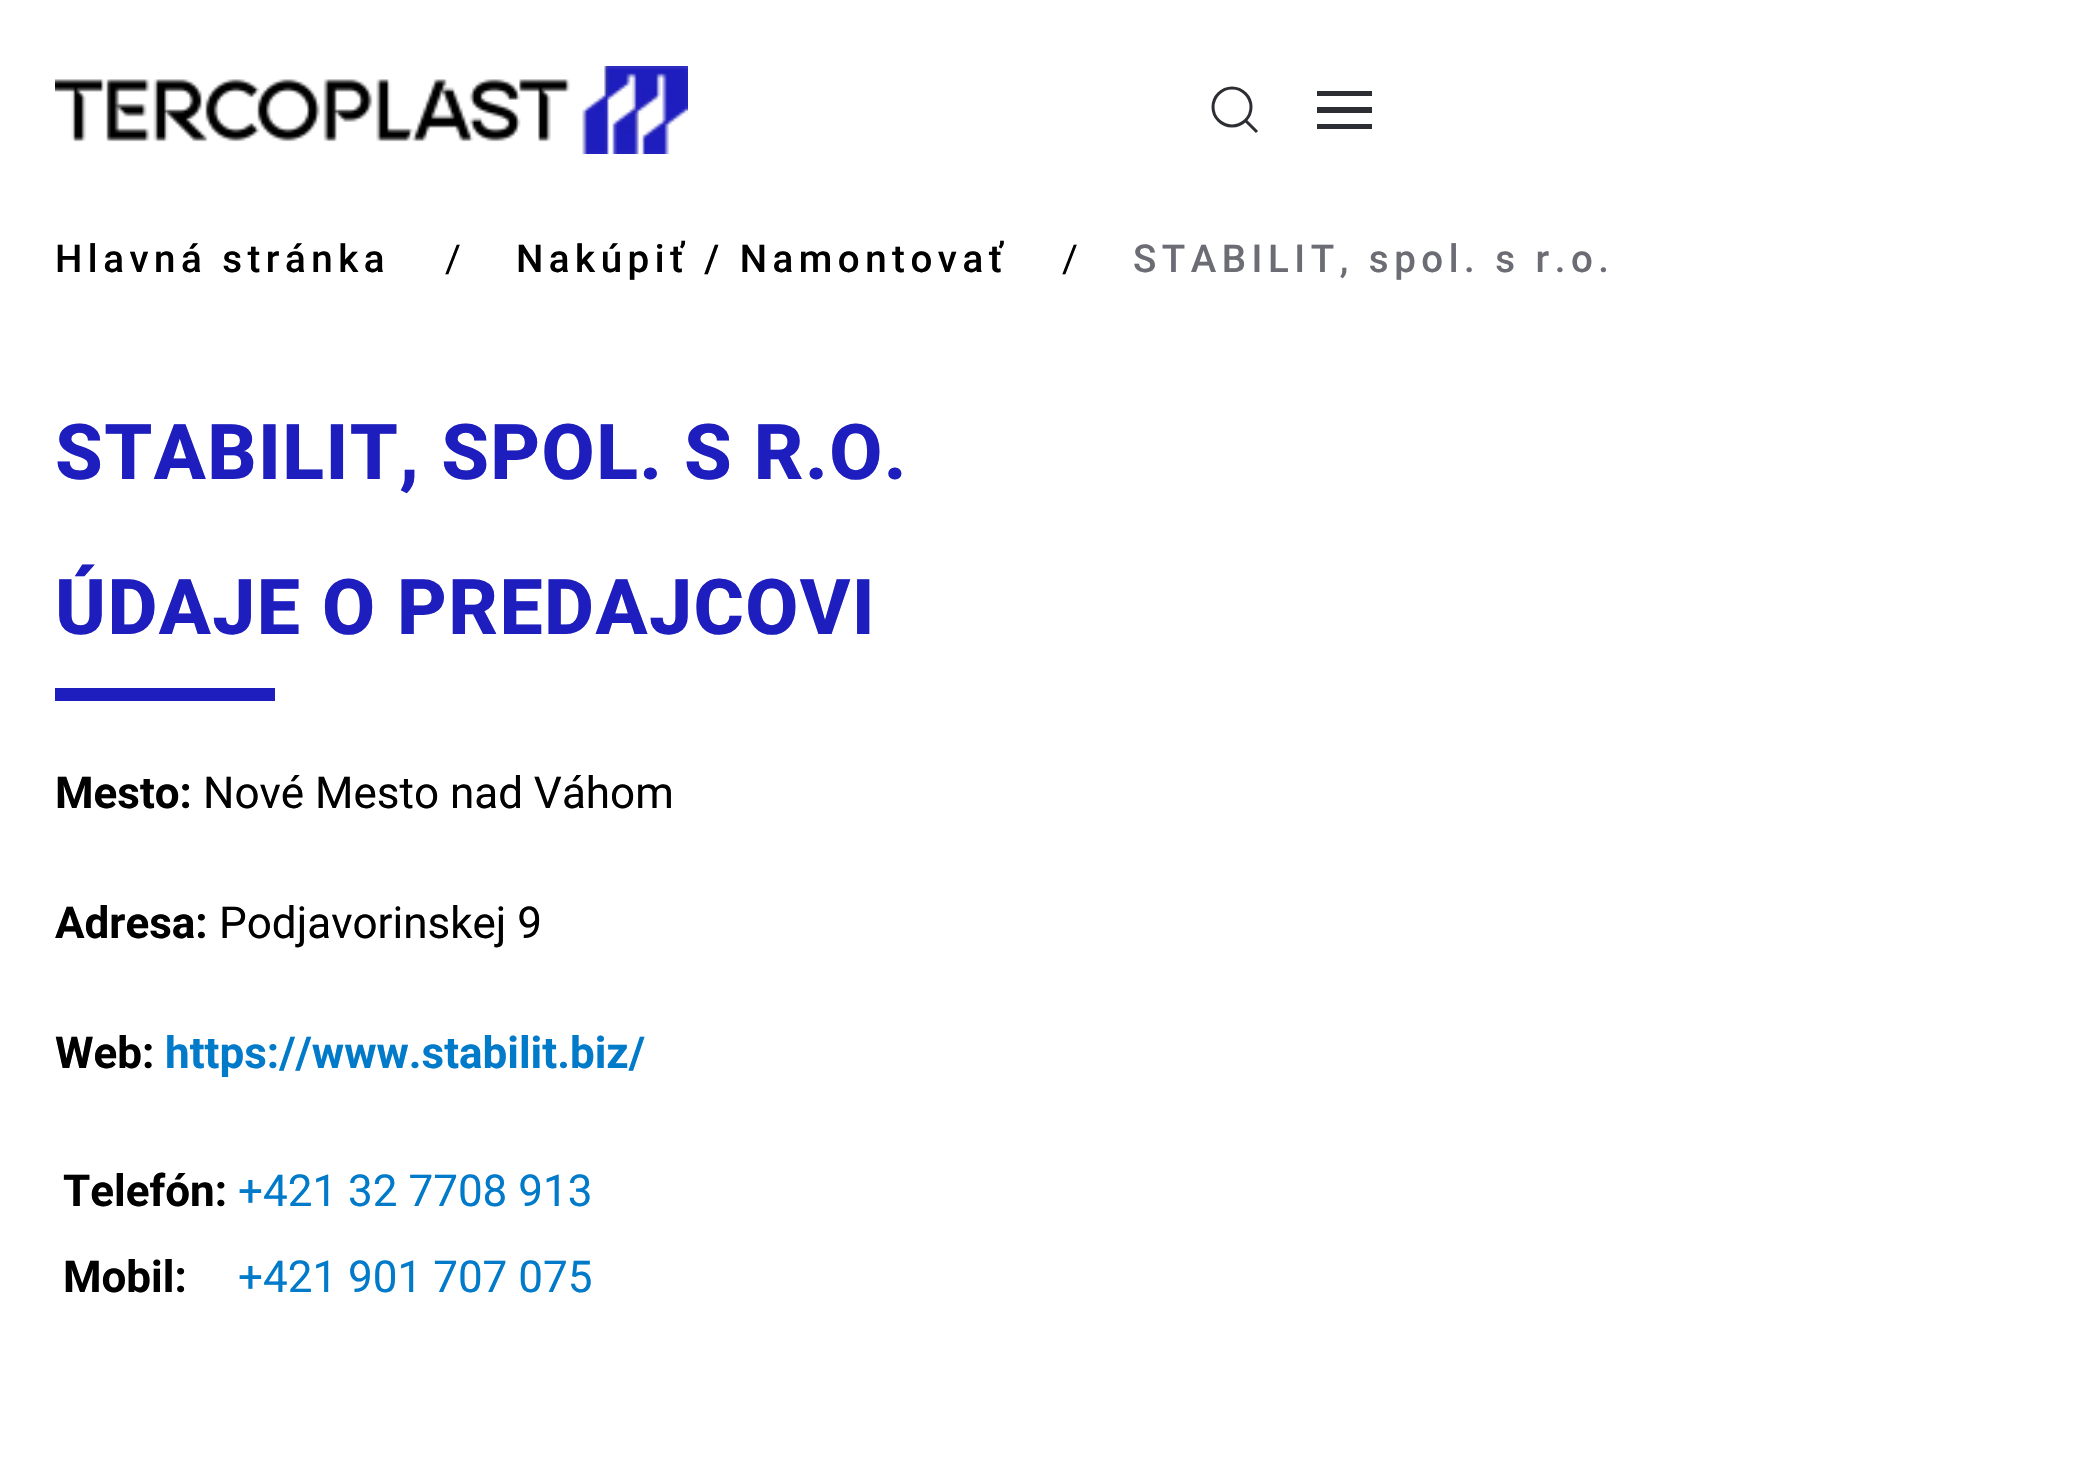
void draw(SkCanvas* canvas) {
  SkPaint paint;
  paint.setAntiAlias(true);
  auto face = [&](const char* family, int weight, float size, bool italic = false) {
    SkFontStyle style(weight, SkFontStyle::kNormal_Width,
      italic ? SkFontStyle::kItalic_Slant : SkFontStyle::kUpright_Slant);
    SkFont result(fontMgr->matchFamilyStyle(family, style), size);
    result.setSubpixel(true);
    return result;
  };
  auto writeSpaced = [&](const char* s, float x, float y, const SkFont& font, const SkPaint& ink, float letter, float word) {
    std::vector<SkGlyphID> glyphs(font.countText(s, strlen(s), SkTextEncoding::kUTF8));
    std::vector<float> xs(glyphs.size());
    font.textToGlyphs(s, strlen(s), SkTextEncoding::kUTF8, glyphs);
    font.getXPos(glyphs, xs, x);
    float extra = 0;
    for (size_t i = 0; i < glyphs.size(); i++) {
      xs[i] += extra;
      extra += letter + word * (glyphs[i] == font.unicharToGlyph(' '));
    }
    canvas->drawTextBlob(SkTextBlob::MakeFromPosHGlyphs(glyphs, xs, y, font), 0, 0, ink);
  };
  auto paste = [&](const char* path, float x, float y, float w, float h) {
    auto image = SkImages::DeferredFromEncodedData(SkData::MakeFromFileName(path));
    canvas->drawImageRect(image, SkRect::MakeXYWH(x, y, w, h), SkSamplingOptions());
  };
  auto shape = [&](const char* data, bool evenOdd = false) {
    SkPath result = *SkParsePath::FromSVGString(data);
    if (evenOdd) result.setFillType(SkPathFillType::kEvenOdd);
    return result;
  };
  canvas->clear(0xffffffff);
  paste("img/1.png", 55, 66, 633, 88);
  paint.setStroke(true);
  paint.setStrokeWidth(3);
  paint.setColor(0xff2d2e33);
  canvas->drawCircle(1232, 107, 19, paint);
  canvas->drawPath(shape("M1246 121L1257 132Z"), paint);
  paint.setStroke(false);
  {
    const struct { float x, y, w, h; SkColor color; } items[] = {
      {1317, 91, 55, 5, 0xff2d2e33},
      {1317, 107, 55, 6, 0xff2d2e33},
      {1317, 124, 55, 5, 0xff2d2e33},
      {55, 688, 220, 13, 0xff1e1ebe},
    };
    for (auto [x, y, w, h, color] : items) {
      paint.setColor(color);
      canvas->drawRect(SkRect::MakeXYWH(x, y, w, h), paint);
    }
  }
  auto f0 = face("Roboto", 500, 38.5f);
  paint.setColor(0xff000000);
  writeSpaced("Hlavná stránka", 55, 272, f0, paint, 5.5f, 0);
  auto f1 = face("Roboto", 400, 38.5f);
  canvas->drawString("/", 445, 272, f1, paint);
  writeSpaced("Nakúpiť / Namontovať", 516, 272, f0, paint, 5.5f, 0);
  canvas->drawString("/", 1062, 272, f1, paint);
  paint.setColor(0xff6c6d74);
  writeSpaced("STABILIT, spol. s r.o.", 1133, 272, f0, paint, 5.5f, 0);
  auto f2 = face("Roboto", 800, 77);
  paint.setColor(0xff1e1ebe);
  writeSpaced("STABILIT, SPOL. S R.O.", 55, 479, f2, paint, 1.4f, 0);
  writeSpaced("ÚDAJE O PREDAJCOVI", 55, 634, f2, paint, 1.4f, 0);
  auto f3 = face("Roboto", 700, 44);
  paint.setColor(0xff000000);
  canvas->drawString("Mesto:", 55, 808, f3, paint);
  auto f4 = face("Roboto", 400, 44);
  canvas->drawString("Nové Mesto nad Váhom", 203, 808, f4, paint);
  canvas->drawString("Adresa:", 55, 938, f3, paint);
  canvas->drawString("Podjavorinskej 9", 219, 938, f4, paint);
  canvas->drawString("Web:", 55, 1068, f3, paint);
  paint.setColor(0xff017ac9);
  canvas->drawString("https://www.stabilit.biz/", 165, 1068, f3, paint);
  paint.setColor(0xff000000);
  canvas->drawString("Telefón:", 63, 1206, f3, paint);
  paint.setColor(0xff017ac9);
  canvas->drawString("+421 32 7708 913", 238, 1206, f4, paint);
  paint.setColor(0xff000000);
  canvas->drawString("Mobil:", 63, 1292, f3, paint);
  paint.setColor(0xff017ac9);
  canvas->drawString("+421 901 707 075", 238, 1292, f4, paint);
}
